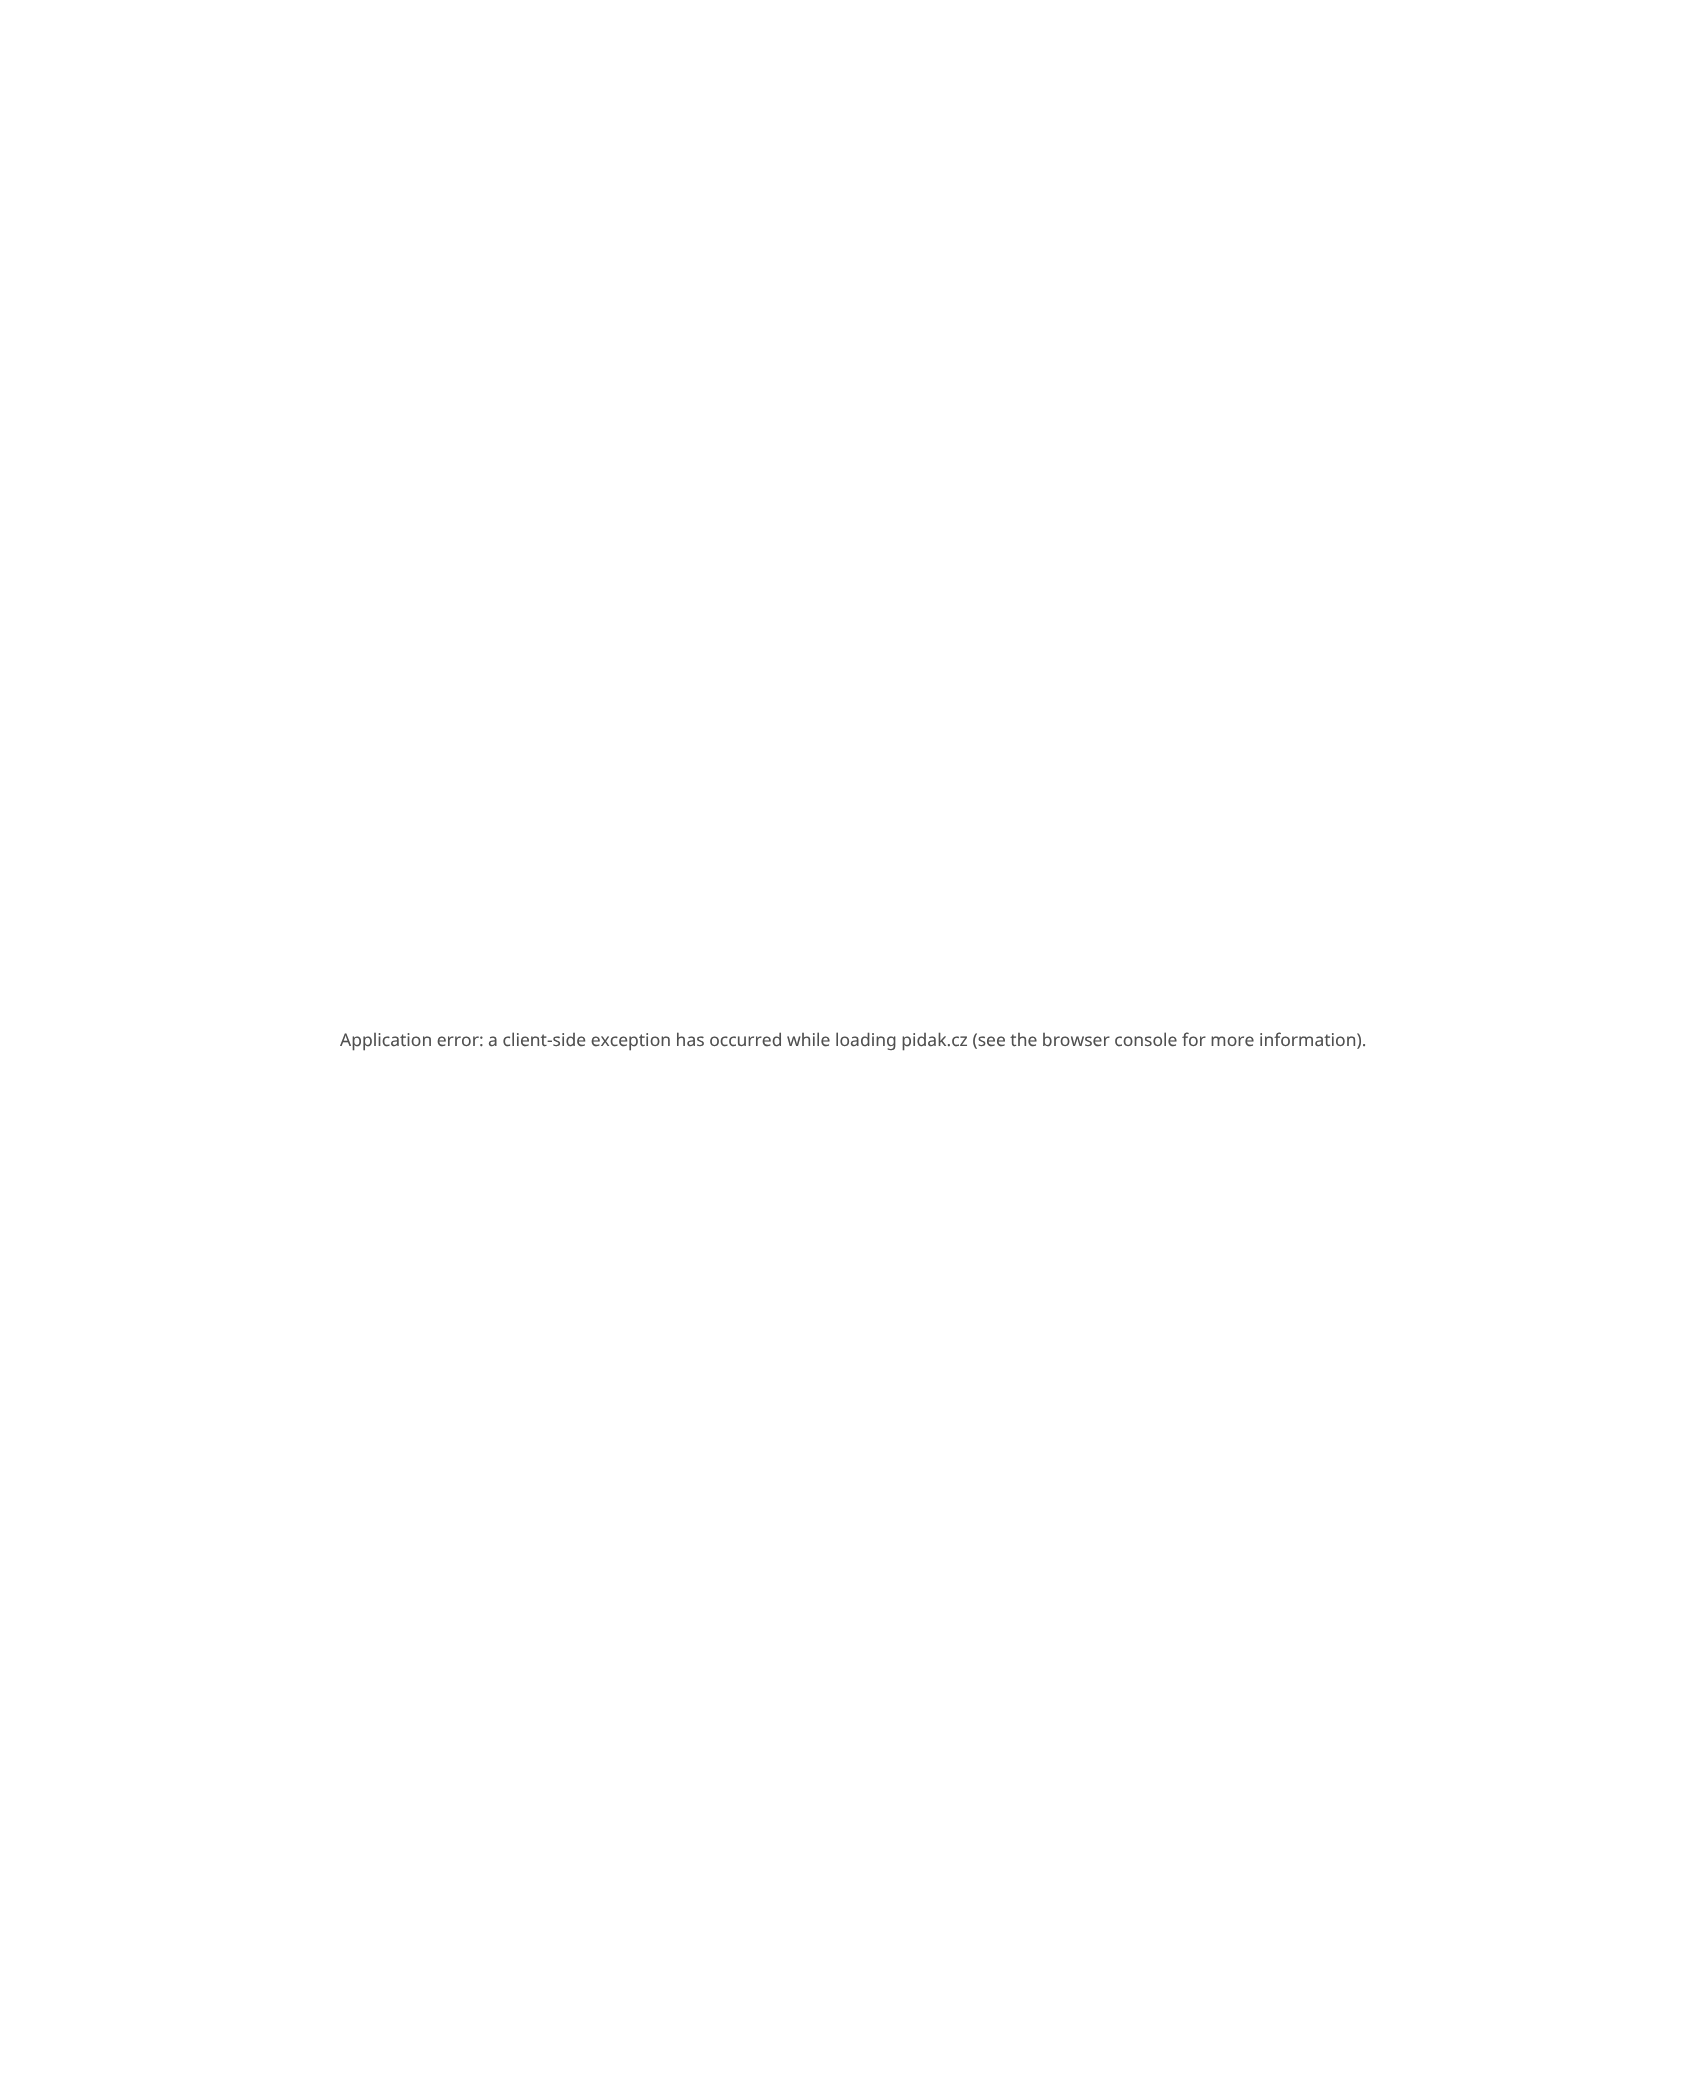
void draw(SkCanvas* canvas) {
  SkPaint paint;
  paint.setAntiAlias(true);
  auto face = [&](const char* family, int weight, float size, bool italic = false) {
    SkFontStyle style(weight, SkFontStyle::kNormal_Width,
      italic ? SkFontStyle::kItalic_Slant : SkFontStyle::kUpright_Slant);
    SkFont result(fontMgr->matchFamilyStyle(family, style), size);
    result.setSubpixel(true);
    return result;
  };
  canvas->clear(0xffffffff);
  auto f0 = face("Noto Sans", 400, 17.5f);
  paint.setColor(0xff505050);
  canvas->drawString("Application error: a client-side exception has occurred while loading pidak.cz (see the browser console for more information).", 340, 1046, f0, paint);
}
